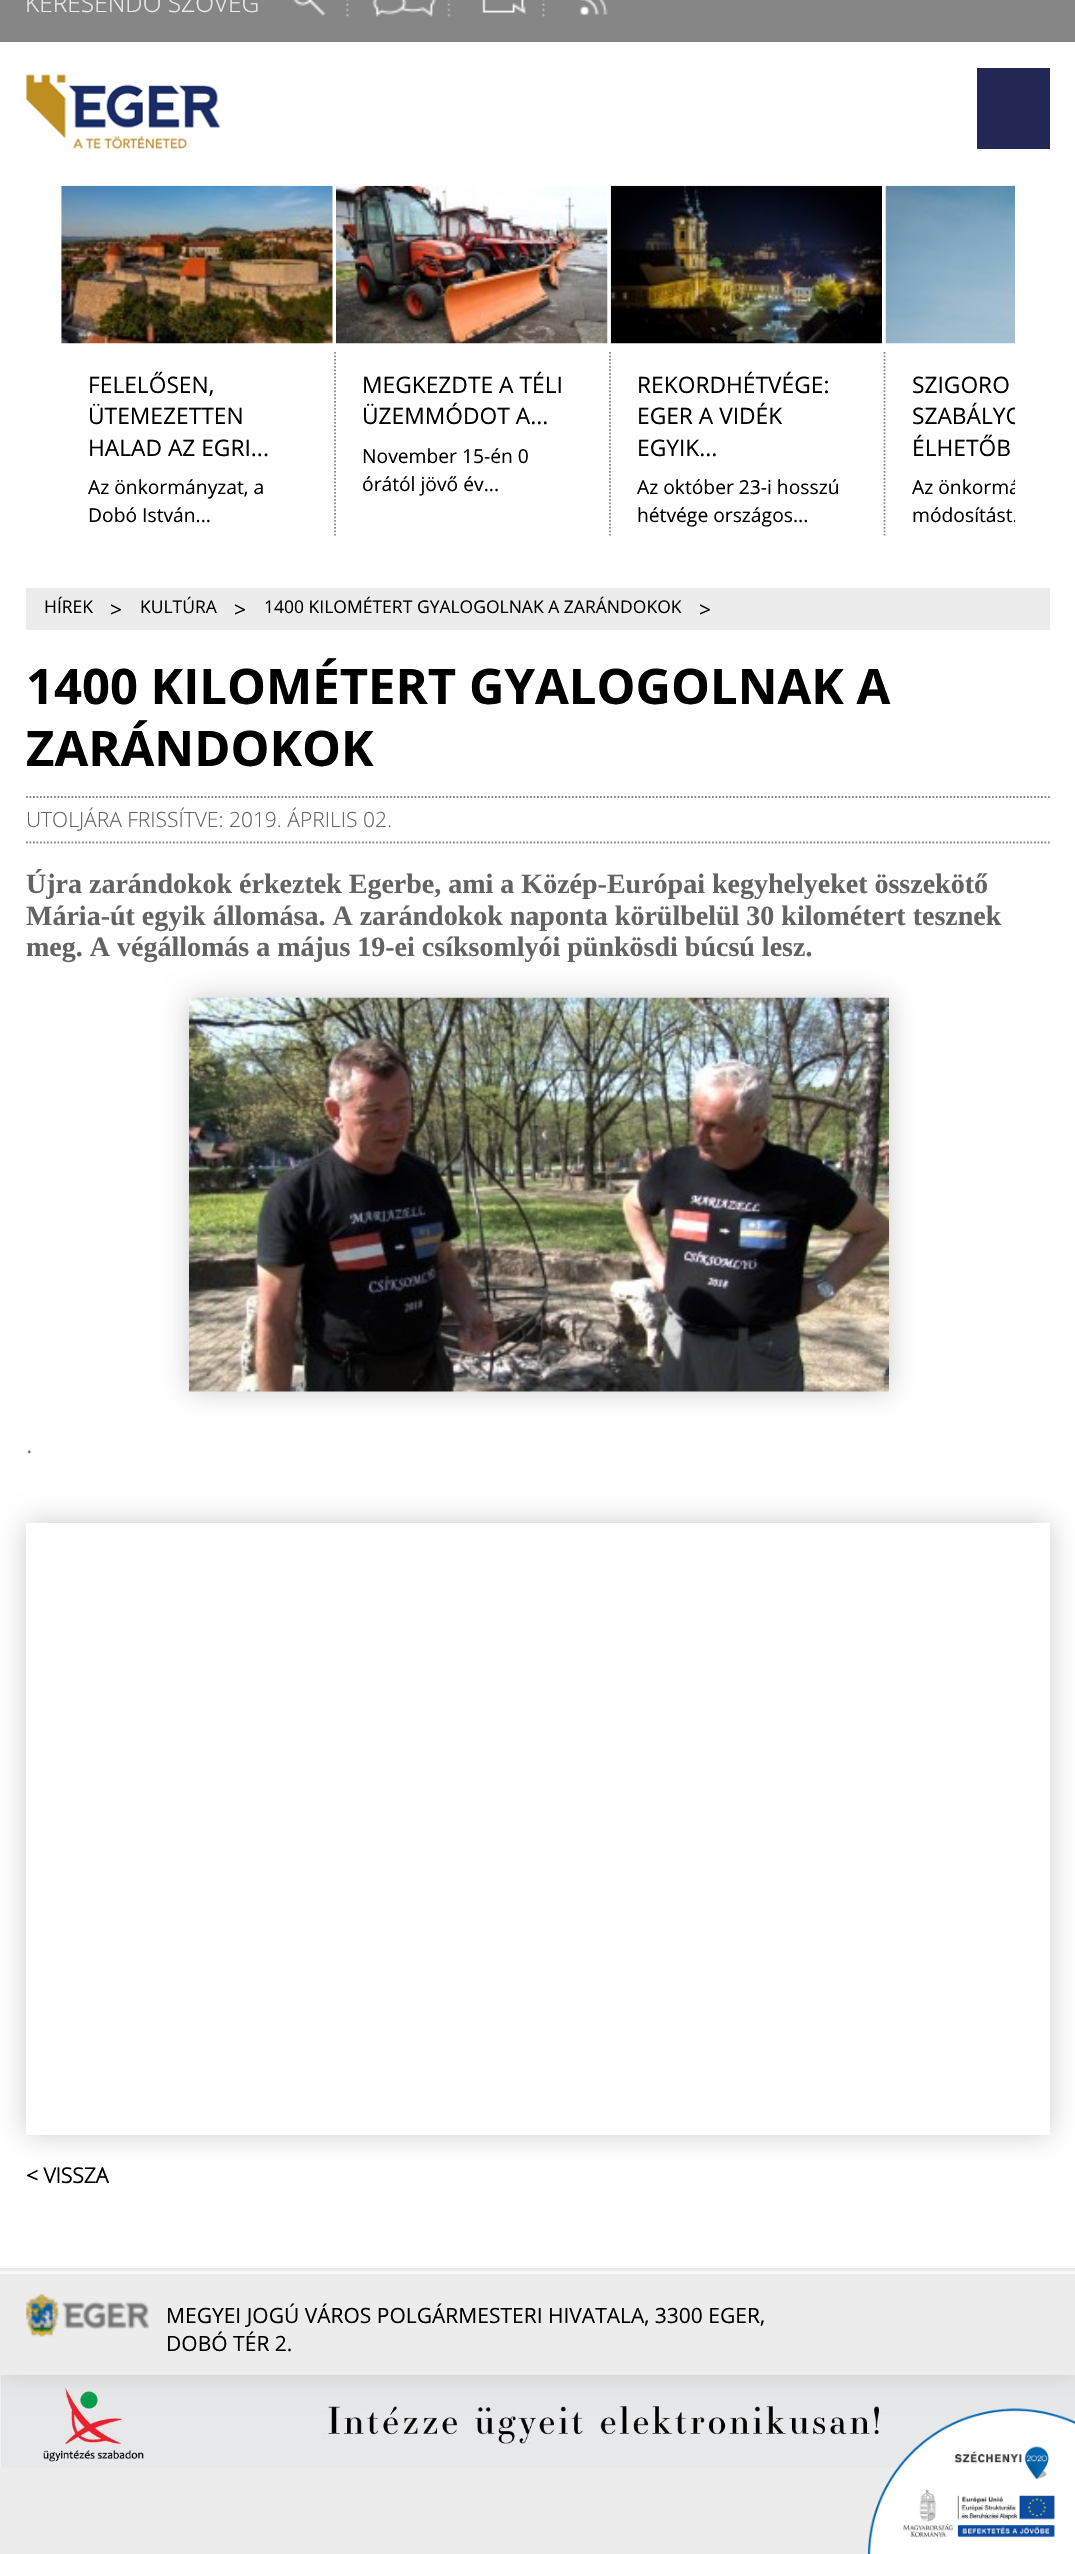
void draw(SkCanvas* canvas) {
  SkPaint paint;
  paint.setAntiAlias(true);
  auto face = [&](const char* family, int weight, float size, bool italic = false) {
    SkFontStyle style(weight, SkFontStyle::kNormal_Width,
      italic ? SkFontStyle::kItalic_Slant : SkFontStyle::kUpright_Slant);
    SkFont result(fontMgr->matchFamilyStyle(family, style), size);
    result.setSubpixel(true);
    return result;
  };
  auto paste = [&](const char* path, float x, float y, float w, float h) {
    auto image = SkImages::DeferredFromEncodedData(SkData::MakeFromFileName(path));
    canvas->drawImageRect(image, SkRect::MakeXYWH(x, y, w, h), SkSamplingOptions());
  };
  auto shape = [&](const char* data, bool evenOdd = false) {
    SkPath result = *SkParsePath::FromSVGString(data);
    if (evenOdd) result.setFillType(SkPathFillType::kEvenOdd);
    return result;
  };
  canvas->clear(0xffececec);
  paste("img/14.png", 0, 2375, 1075, 93);
  paint.setColor(0xffcccccc);
  paint.setMaskFilter(SkMaskFilter::MakeBlur(kNormal_SkBlurStyle, 13));
  canvas->drawRect(SkRect::MakeXYWH(0, 42, 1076, 2333), paint);
  paint.setMaskFilter(nullptr);
  paint.setColor(0xff868686);
  canvas->drawRect(SkRect::MakeXYWH(0, 0, 1075, 42), paint);
  paste("img/1.png", 346, 0, 3, 17);
  paste("img/2.png", 293, 0, 33, 17);
  paste("img/3.png", 447, 0, 4, 17);
  paste("img/4.png", 372, 0, 64, 17);
  paste("img/1.png", 542, 0, 3, 17);
  paste("img/5.png", 482, 0, 45, 15);
  paste("img/6.png", 579, 0, 29, 16);
  paint.setColor(0xffffffff);
  canvas->drawRect(SkRect::MakeXYWH(0, 42, 1075, 2226), paint);
  paste("img/7.png", 26, 74, 195, 75);
  paint.setColor(0xff232755);
  canvas->drawRect(SkRect::MakeXYWH(977, 68, 73, 81), paint);
  paste("img/8.png", 61, 185, 272, 159);
  paint.setStroke(true);
  paint.setStrokeWidth(1.8f);
  paint.setColor(0xff888888);
  paint.setPathEffect(SkDashPathEffect::Make({{1.75f, 1.75f}}, 0));
  canvas->drawPath(shape("M335 352V535.5"), paint);
  paint.setPathEffect(nullptr);
  paste("img/9.png", 336, 185, 272, 159);
  paint.setPathEffect(SkDashPathEffect::Make({{1.75f, 1.75f}}, 0));
  canvas->drawPath(shape("M610 352V535.5"), paint);
  paint.setPathEffect(nullptr);
  paste("img/10.png", 610, 185, 272, 159);
  paint.setPathEffect(SkDashPathEffect::Make({{1.75f, 1.75f}}, 0));
  canvas->drawPath(shape("M884.5 352V535.5"), paint);
  paint.setPathEffect(nullptr);
  paste("img/11.png", 885, 185, 130, 159);
  paint.setStroke(false);
  paint.setColor(0xffececec);
  canvas->drawRect(SkRect::MakeXYWH(26, 588, 1024, 42), paint);
  paint.setStroke(true);
  paint.setColor(0xff888888);
  paint.setPathEffect(SkDashPathEffect::Make({{1.75f, 1.75f}}, 0));
  canvas->drawPath(shape("M26 797H1050"), paint);
  paint.setPathEffect(nullptr);
  paint.setPathEffect(SkDashPathEffect::Make({{1.75f, 1.75f}}, 0));
  canvas->drawPath(shape("M26 842.5H1050"), paint);
  paint.setPathEffect(nullptr);
  paint.setStroke(false);
  paint.setColor(0xffcccccc);
  paint.setMaskFilter(SkMaskFilter::MakeBlur(kNormal_SkBlurStyle, 13));
  canvas->drawRect(SkRect::MakeXYWH(189, 998, 700, 393), paint);
  paint.setMaskFilter(nullptr);
  paste("img/12.png", 189, 997, 700, 395);
  canvas->save();
  canvas->clipPath(shape("M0 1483H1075V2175H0ZM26 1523H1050V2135H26Z", true), true);
  paint.setMaskFilter(SkMaskFilter::MakeBlur(kNormal_SkBlurStyle, 13));
  canvas->drawRect(SkRect::MakeXYWH(26, 1523, 1024, 612), paint);
  paint.setMaskFilter(nullptr);
  canvas->restore();
  paint.setColor(0xffececec);
  canvas->drawRect(SkRect::MakeXYWH(0, 2268, 1075, 107), paint);
  paint.setColor(0xfff8f8f8);
  canvas->drawRect(SkRect::MakeXYWH(0, 2271, 1075, 3), paint);
  paste("img/13.png", 26, 2294, 123, 43);
  paste("img/15.png", 867, 2408, 208, 146);
  auto f0 = face("Open Sans", 300, 24.5f);
  paint.setColor(0xffececec);
  canvas->drawString("KERESENDŐ SZÖVEG", 25, 12, f0, paint);
  auto f1 = face("Open Sans", 400, 22.75f);
  paint.setColor(0xff000000);
  {
    const struct { const char* s; float x, y; } items[] = {
      {"FELELŐSEN,", 88, 393},
      {"ÜTEMEZETTEN", 88, 424},
      {"HALAD AZ EGRI...", 88, 456},
    };
    for (auto [s, x, y] : items) {
      canvas->drawString(s, x, y, f1, paint);
    }
  }
  auto f2 = face("Open Sans", 400, 19.25f);
  canvas->drawString("Az önkormányzat, a", 88, 494, f2, paint);
  canvas->drawString("Dobó István...", 88, 522, f2, paint);
  canvas->drawString("MEGKEZDTE A TÉLI", 362, 393, f1, paint);
  canvas->drawString("ÜZEMMÓDOT A...", 362, 424, f1, paint);
  canvas->drawString("November 15-én 0", 362, 463, f2, paint);
  canvas->drawString("órától jövő év...", 362, 491, f2, paint);
  {
    const struct { const char* s; float x, y; } items[] = {
      {"REKORDHÉTVÉGE:", 637, 393},
      {"EGER A VIDÉK", 637, 424},
      {"EGYIK...", 637, 456},
    };
    for (auto [s, x, y] : items) {
      canvas->drawString(s, x, y, f1, paint);
    }
  }
  canvas->drawString("Az október 23-i hosszú", 637, 494, f2, paint);
  canvas->drawString("hétvége országos...", 637, 522, f2, paint);
  canvas->drawString("SZIGORO", 912, 393, f1, paint);
  canvas->save();
  canvas->clipRect(SkRect::MakeXYWH(886, 186, 129, 350));
  canvas->drawString("SZABÁLYO", 912, 424, f1, paint);
  canvas->restore();
  canvas->drawString("ÉLHETŐB", 912, 456, f1, paint);
  canvas->save();
  canvas->clipRect(SkRect::MakeXYWH(886, 186, 129, 350));
  canvas->drawString("Az önkormá", 912, 494, f2, paint);
  canvas->drawString("módosítást.", 912, 522, f2, paint);
  canvas->restore();
  auto f3 = face("Open Sans", 400, 17.5f);
  canvas->drawString("HÍREK", 44, 613, f3, paint);
  auto f4 = face("Open Sans", 400, 21);
  canvas->drawString(">", 110, 617, f4, paint);
  canvas->drawString("KULTÚRA", 140, 613, f3, paint);
  canvas->drawString(">", 234, 617, f4, paint);
  canvas->drawString("1400 KILOMÉTERT GYALOGOLNAK A ZARÁNDOKOK", 264, 613, f3, paint);
  canvas->drawString(">", 699, 617, f4, paint);
  auto f5 = face("Open Sans", 700, 49);
  canvas->drawString("1400 KILOMÉTERT GYALOGOLNAK A", 26, 704, f5, paint);
  canvas->drawString("ZARÁNDOKOK", 26, 766, f5, paint);
  auto f6 = face("Open Sans", 300, 21);
  paint.setColor(0xff636363);
  canvas->drawString("UTOLJÁRA FRISSÍTVE: 2019. ÁPRILIS 02.", 26, 827, f6, paint);
  auto f7 = face("Liberation Serif", 700, 28);
  {
    const struct { const char* s; float x, y; } items[] = {
      {"Újra zarándokok érkeztek Egerbe, ami a Közép-Európai kegyhelyeket összekötő", 26, 893},
      {"Mária-út egyik állomása. A zarándokok naponta körülbelül 30 kilométert tesznek", 26, 925},
      {"meg. A végállomás a május 19-ei csíksomlyói pünkösdi búcsú lesz.", 26, 956},
    };
    for (auto [s, x, y] : items) {
      canvas->drawString(s, x, y, f7, paint);
    }
  }
  auto f8 = face("Open Sans", 300, 28);
  canvas->drawString(".", 26, 1453, f8, paint);
  auto f9 = face("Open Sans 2", 700, 21);
  paint.setColor(0xff000000);
  canvas->drawString("< VISSZA", 26, 2183, f9, paint);
  canvas->drawString("MEGYEI JOGÚ VÁROS POLGÁRMESTERI HIVATALA, 3300 EGER,", 166, 2323, f4, paint);
  canvas->drawString("DOBÓ TÉR 2.", 166, 2351, f4, paint);
}
